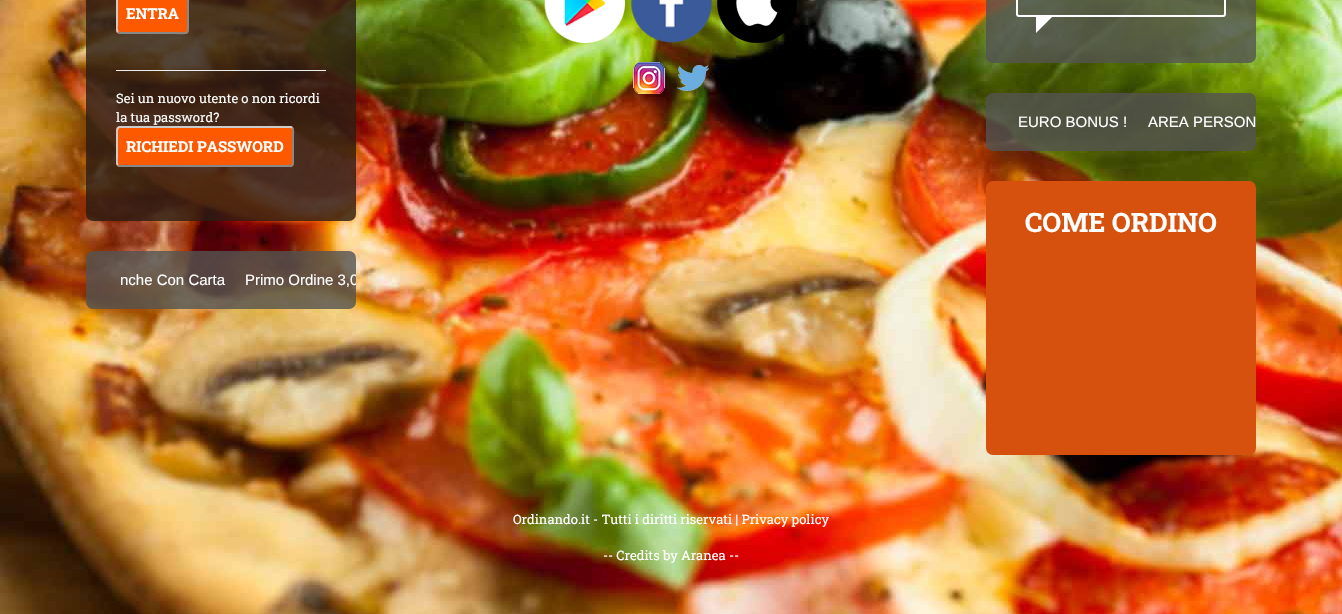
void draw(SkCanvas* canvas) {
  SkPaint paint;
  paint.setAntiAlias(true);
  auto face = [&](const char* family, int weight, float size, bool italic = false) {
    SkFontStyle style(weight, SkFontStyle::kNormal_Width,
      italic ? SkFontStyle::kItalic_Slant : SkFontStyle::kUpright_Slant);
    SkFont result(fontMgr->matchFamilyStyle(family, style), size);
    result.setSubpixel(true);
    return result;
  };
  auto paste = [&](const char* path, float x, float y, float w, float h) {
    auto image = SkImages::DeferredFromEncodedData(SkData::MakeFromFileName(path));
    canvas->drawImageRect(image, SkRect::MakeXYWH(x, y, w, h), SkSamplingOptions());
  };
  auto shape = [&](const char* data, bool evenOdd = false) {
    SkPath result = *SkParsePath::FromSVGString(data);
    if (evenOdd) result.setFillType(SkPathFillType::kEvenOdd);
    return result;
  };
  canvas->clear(0xffffffff);
  paste("img/1.png", 0, 0, 1342, 614);
  paint.setColor(0xcc2b1c13);
  canvas->drawRoundRect(SkRect::MakeXYWH(86, -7, 270, 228), 7, 7, paint);
  paint.setColor(0xfffc5900);
  canvas->drawRoundRect(SkRect::MakeXYWH(116, -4, 73, 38), 4, 4, paint);
  paint.setStroke(true);
  paint.setStrokeWidth(2);
  paint.setColor(0xff888888);
  canvas->drawPath(shape("M187-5C189-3.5 188 1 188 2.5V24.5C188 36 187 33 174 33H120L118 32"), paint);
  canvas->save();
  canvas->clipRect(SkRect::MakeXYWH(116, 0, 210, 186));
  paint.setColor(0xffcccccc);
  canvas->drawPath(shape("M118 32C116 30.5 117 26 117 24.5V2.5C117-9 118-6 131-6H185L187-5"), paint);
  canvas->restore();
  paint.setStroke(false);
  paint.setColor(0xffeeeeee);
  canvas->drawRect(SkRect::MakeXYWH(116, 70, 210, 1), paint);
  paint.setColor(0xfffc5900);
  canvas->drawRoundRect(SkRect::MakeXYWH(116, 126, 178, 41), 4, 4, paint);
  paint.setStroke(true);
  paint.setColor(0xff888888);
  canvas->drawPath(shape("M292 128C294 129.5 293 134 293 135.5V157.5C293 159.5 294 166 290 166H119L118 165"), paint);
  canvas->save();
  canvas->clipRect(SkRect::MakeXYWH(116, 0, 210, 186));
  paint.setColor(0xffcccccc);
  canvas->drawPath(shape("M118 165C116 163.5 117 159 117 157.5V135.5C117 133.5 116 127 120 127H291L292 128"), paint);
  canvas->restore();
  paint.setStroke(false);
  paint.setColor(0xcc525250);
  canvas->drawRoundRect(SkRect::MakeXYWH(86, 251, 270, 58), 7, 7, paint);
  paste("img/2.png", 543, 0, 82, 43);
  paste("img/3.png", 630, 0, 83, 43);
  paste("img/4.png", 717, 0, 80, 43);
  paste("img/5.png", 633, 62, 32, 32);
  paste("img/6.png", 677, 65, 32, 26);
  canvas->drawRoundRect(SkRect::MakeXYWH(986, -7, 270, 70), 7, 7, paint);
  paint.setStroke(true);
  paint.setColor(0xffffffff);
  canvas->drawRoundRect(SkRect::MakeXYWH(1017, -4, 208, 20), 2, 2, paint);
  paste("img/7.png", 1036, 17, 16, 16);
  paint.setStroke(false);
  paint.setColor(0xcc525250);
  canvas->drawRoundRect(SkRect::MakeXYWH(986, 93, 270, 58), 7, 7, paint);
  paint.setColor(0xffd5510d);
  canvas->drawRoundRect(SkRect::MakeXYWH(986, 181, 270, 274), 7, 7, paint);
  auto f0 = face("Roboto Slab", 700, 15);
  paint.setColor(0xffffffff);
  canvas->drawString("ENTRA", 126, 19, f0, paint);
  auto f1 = face("Roboto Slab", 400, 13);
  canvas->drawString("Sei un nuovo utente o non ricordi", 116, 103, f1, paint);
  canvas->drawString("la tua password?", 116, 122, f1, paint);
  canvas->drawString("RICHIEDI PASSWORD", 126, 152, f0, paint);
  auto f2 = face("Liberation Sans", 400, 15);
  canvas->drawString("nche Con Carta", 120, 285, f2, paint);
  canvas->save();
  canvas->clipPath(shape("M93 251H349C353 251 356 254 356 258V302C356 306 353 309 349 309H93C89 309 86 306 86 302V258C86 254 89 251 93 251Z"), true);
  canvas->drawString("Primo Ordine 3,0", 245, 285, f2, paint);
  canvas->restore();
  canvas->drawString("EURO BONUS !", 1018, 127, f2, paint);
  canvas->drawString("AREA PERSON", 1148, 127, f2, paint);
  auto f3 = face("Roboto Slab", 700, 26.75f);
  canvas->drawString("COME ORDINO", 1025, 232, f3, paint);
  canvas->drawString("Ordinando.it - Tutti i diritti riservati | Privacy policy", 513, 524, f1, paint);
  canvas->drawString("-- Credits by Aranea --", 603, 560, f1, paint);
}
